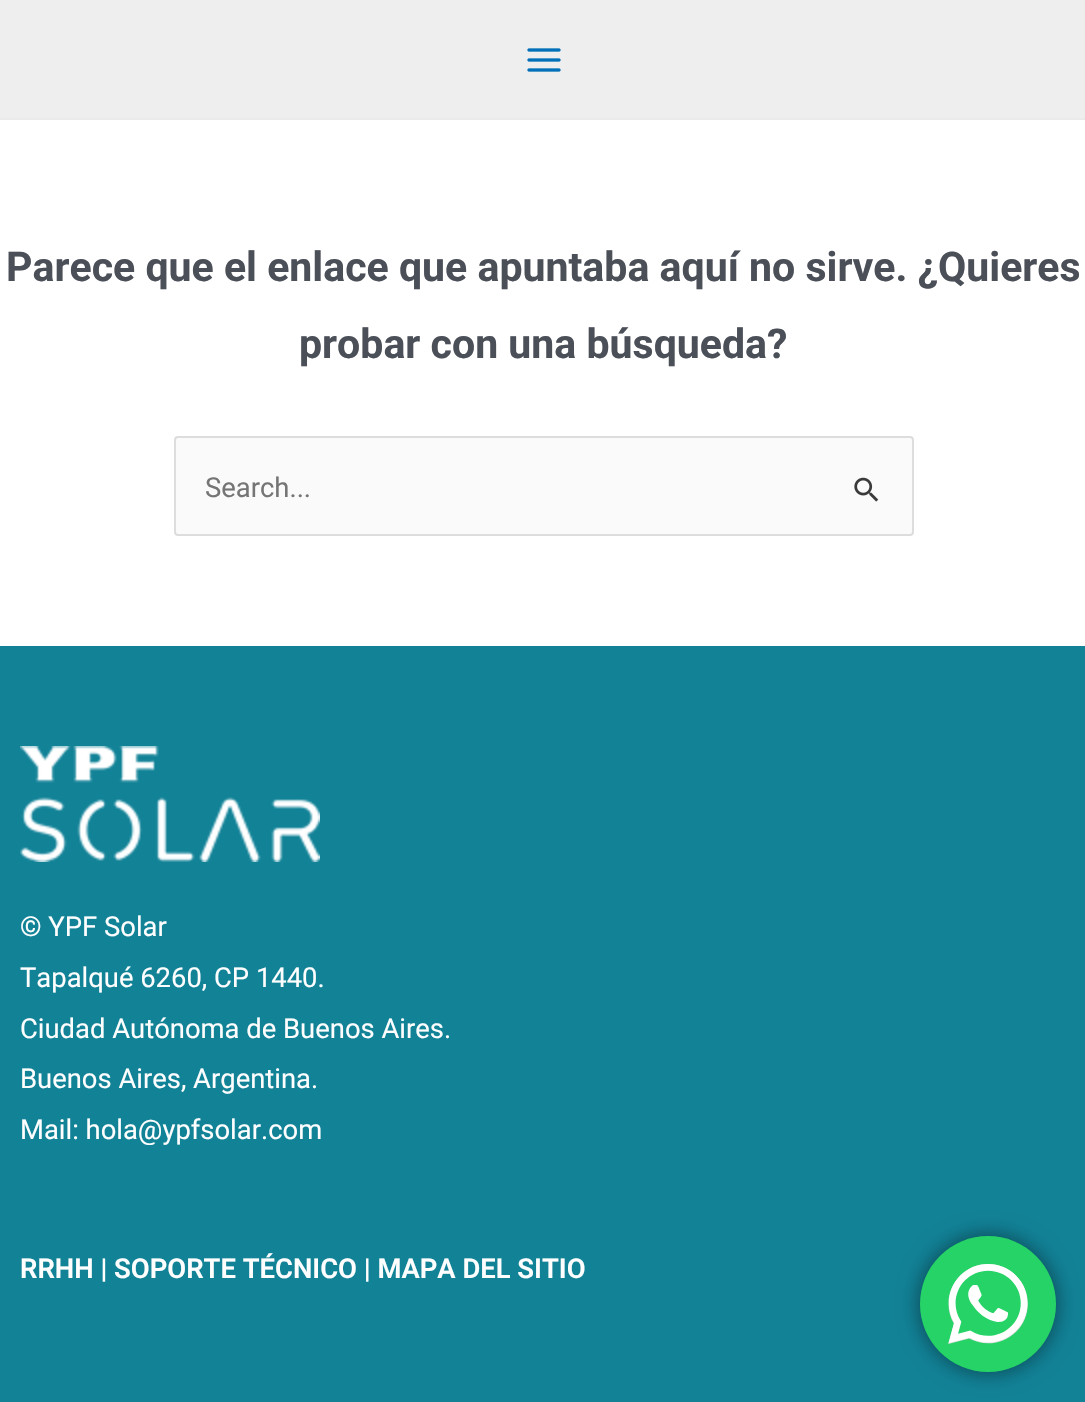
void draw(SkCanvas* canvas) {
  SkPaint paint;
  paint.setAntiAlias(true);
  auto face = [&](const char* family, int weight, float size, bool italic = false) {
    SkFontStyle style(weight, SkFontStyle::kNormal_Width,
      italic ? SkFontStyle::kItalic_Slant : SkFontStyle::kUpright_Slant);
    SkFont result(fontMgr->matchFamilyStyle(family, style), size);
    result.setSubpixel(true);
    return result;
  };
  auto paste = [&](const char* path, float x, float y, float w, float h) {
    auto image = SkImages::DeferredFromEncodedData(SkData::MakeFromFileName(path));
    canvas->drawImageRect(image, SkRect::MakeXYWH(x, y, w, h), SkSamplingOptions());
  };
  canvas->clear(0xffffffff);
  paint.setColor(0xffeeeeee);
  canvas->drawRect(SkRect::MakeXYWH(0, 0, 1085, 118), paint);
  paint.setColor(0xffeaeaea);
  canvas->drawRect(SkRect::MakeXYWH(0, 118, 1085, 2), paint);
  paste("img/1.png", 527, 48, 34, 24);
  paint.setColor(0xfffafafa);
  canvas->drawRoundRect(SkRect::MakeXYWH(175, 437, 738, 98), 3, 3, paint);
  paint.setStroke(true);
  paint.setStrokeWidth(2);
  paint.setColor(0xffdddddd);
  canvas->drawRoundRect(SkRect::MakeXYWH(175, 437, 738, 98), 3, 3, paint);
  paste("img/2.png", 854, 477, 25, 25);
  paint.setStroke(false);
  paint.setColor(0xff128297);
  canvas->drawRect(SkRect::MakeXYWH(0, 646, 1085, 756), paint);
  paste("img/3.png", 20, 746, 300, 116);
  paint.setColor(0x80000000);
  paint.setMaskFilter(SkMaskFilter::MakeBlur(kNormal_SkBlurStyle, 11));
  canvas->drawRoundRect(SkRect::MakeXYWH(920, 1236, 136, 136), 68, 68, paint);
  paint.setMaskFilter(nullptr);
  paint.setColor(0xff25d366);
  canvas->drawCircle(988, 1304, 68, paint);
  paste("img/4.png", 948, 1264, 80, 80);
  auto f0 = face("Roboto", 700, 41.05f);
  paint.setColor(0xff4b4f58);
  canvas->drawString("Parece que el enlace que apuntaba aquí no sirve. ¿Quieres", 6, 281, f0, paint);
  canvas->drawString("probar con una búsqueda?", 299, 358, f0, paint);
  auto f1 = face("Roboto", 400, 27.4f);
  paint.setColor(0xff757575);
  canvas->drawString("Search...", 205, 497, f1, paint);
  paint.setColor(0xffffffff);
  {
    const struct { const char* s; float x, y; } items[] = {
      {"© YPF Solar", 20, 936},
      {"Tapalqué 6260, CP 1440.", 20, 987},
      {"Ciudad Autónoma de Buenos Aires.", 20, 1038},
      {"Buenos Aires, Argentina.", 20, 1088},
      {"Mail: hola@ypfsolar.com", 20, 1139},
    };
    for (auto [s, x, y] : items) {
      canvas->drawString(s, x, y, f1, paint);
    }
  }
  auto f2 = face("Roboto", 600, 27.4f);
  canvas->drawString("RRHH | SOPORTE TÉCNICO | MAPA DEL SITIO", 20, 1278, f2, paint);
}
